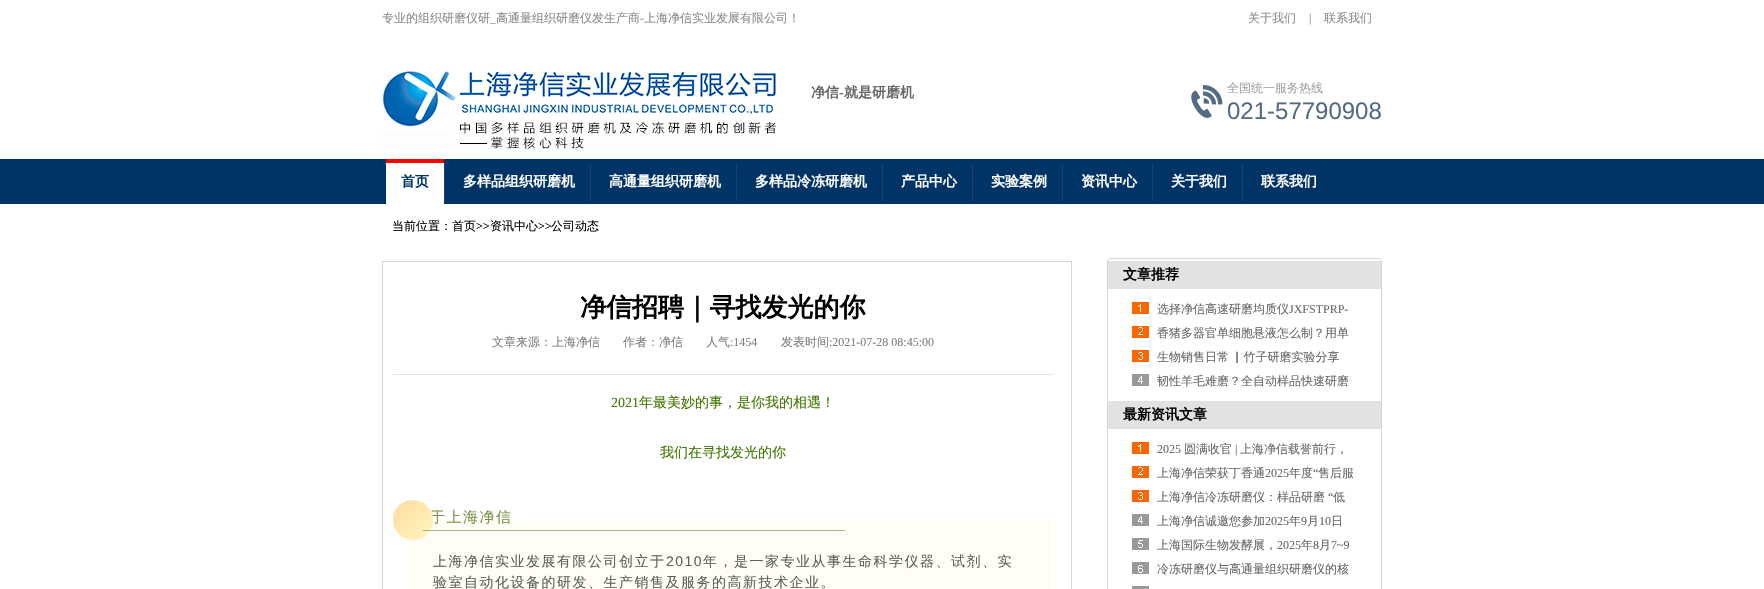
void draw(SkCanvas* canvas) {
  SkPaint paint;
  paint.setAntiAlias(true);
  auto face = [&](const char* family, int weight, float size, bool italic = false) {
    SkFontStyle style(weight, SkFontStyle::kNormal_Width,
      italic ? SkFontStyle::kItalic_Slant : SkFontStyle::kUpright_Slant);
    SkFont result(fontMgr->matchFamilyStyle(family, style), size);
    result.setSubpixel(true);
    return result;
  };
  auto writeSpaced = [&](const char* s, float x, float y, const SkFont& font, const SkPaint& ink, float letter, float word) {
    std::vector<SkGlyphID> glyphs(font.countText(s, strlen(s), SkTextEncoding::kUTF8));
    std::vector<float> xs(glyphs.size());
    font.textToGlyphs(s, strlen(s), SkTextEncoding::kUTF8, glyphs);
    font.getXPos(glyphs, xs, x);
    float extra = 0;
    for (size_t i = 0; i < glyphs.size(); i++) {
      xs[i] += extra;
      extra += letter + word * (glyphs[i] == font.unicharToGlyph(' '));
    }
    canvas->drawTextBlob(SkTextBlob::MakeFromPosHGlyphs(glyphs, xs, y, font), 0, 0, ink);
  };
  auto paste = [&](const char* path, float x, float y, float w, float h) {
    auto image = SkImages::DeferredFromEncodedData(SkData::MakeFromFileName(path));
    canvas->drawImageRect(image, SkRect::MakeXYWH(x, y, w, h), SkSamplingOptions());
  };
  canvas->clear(0xffffffff);
  paste("img/1.png", 383, 71, 393, 78);
  paste("img/2.png", 1191, 85, 32, 33);
  {
    const struct { float x, y, w, h; SkColor color; } items[] = {
      {0, 159, 1764, 45, 0xff003466},
      {386, 163, 58, 41, 0xffffffff},
      {386, 159, 58, 4, 0xffff0000},
    };
    for (auto [x, y, w, h, color] : items) {
      paint.setColor(color);
      canvas->drawRect(SkRect::MakeXYWH(x, y, w, h), paint);
    }
  }
  paste("img/3.png", 444, 164, 1, 37);
  paste("img/3.png", 590, 164, 1, 37);
  paste("img/3.png", 736, 164, 1, 37);
  paste("img/3.png", 882, 164, 1, 37);
  paste("img/3.png", 972, 164, 1, 37);
  paste("img/3.png", 1062, 164, 1, 37);
  paste("img/3.png", 1152, 164, 1, 37);
  paste("img/3.png", 1242, 164, 1, 37);
  paint.setStroke(true);
  paint.setStrokeWidth(1);
  paint.setColor(0xffd5d5d5);
  canvas->drawRect(SkRect::MakeXYWH(382.5f, 261.5f, 689, 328), paint);
  paint.setStroke(false);
  paint.setColor(0xffe5e5e5);
  canvas->drawRect(SkRect::MakeXYWH(393, 374, 660, 1), paint);
  paint.setColor(0xfffffdf5);
  canvas->drawRect(SkRect::MakeXYWH(408, 520, 645, 69), paint);
  paste("img/4.png", 1107, 258, 275, 3);
  {
    const struct { float x, y, w, h; SkColor color; } items[] = {
      {1381, 261, 1, 328, 0xffd5d5d5},
      {1107, 261, 1, 328, 0xffd5d5d5},
      {1108, 261, 273, 28, 0xffe2e2e2},
    };
    for (auto [x, y, w, h, color] : items) {
      paint.setColor(color);
      canvas->drawRect(SkRect::MakeXYWH(x, y, w, h), paint);
    }
  }
  paste("img/5.png", 1132, 302, 17, 84);
  canvas->drawRect(SkRect::MakeXYWH(1108, 401, 273, 28), paint);
  paste("img/6.png", 1132, 442, 17, 147);
  auto f0 = face("WenQuanYi Zen Hei", 500, 12);
  paint.setColor(0xff8a8a8a);
  canvas->drawString("专业的组织研磨仪研", 382, 22, f0, paint);
  auto f1 = face("Liberation Serif", 400, 12);
  canvas->drawString("-", 640, 22, f1, paint);
  canvas->drawString("上海净信实业发展有限公司！", 644, 22, f0, paint);
  canvas->drawString("_", 490, 22, f1, paint);
  canvas->drawString("高通量组织研磨仪发生产商", 496, 22, f0, paint);
  canvas->drawString("关于我们", 1248, 22, f0, paint);
  canvas->drawString("|", 1309, 22, f1, paint);
  canvas->drawString("联系我们", 1324, 22, f0, paint);
  auto f2 = face("WenQuanYi Zen Hei", 700, 14);
  paint.setColor(0xff666666);
  canvas->drawString("净信", 811, 97, f2, paint);
  auto f3 = face("Liberation Serif", 700, 14);
  canvas->drawString("-", 839, 97, f3, paint);
  canvas->drawString("就是研磨机", 844, 97, f2, paint);
  paint.setColor(0xffa1a1a1);
  canvas->drawString("全国统一服务热线", 1227, 92, f0, paint);
  auto f4 = face("Liberation Sans", 400, 24);
  paint.setColor(0xff546a85);
  canvas->drawString("021-57790908", 1227, 119, f4, paint);
  paint.setColor(0xff003466);
  canvas->drawString("首页", 401, 186, f2, paint);
  paint.setColor(0xffffffff);
  {
    const struct { const char* s; float x, y; } items[] = {
      {"多样品组织研磨机", 463, 186},
      {"高通量组织研磨机", 609, 186},
      {"多样品冷冻研磨机", 755, 186},
      {"产品中心", 901, 186},
      {"实验案例", 991, 186},
      {"资讯中心", 1081, 186},
      {"关于我们", 1171, 186},
      {"联系我们", 1261, 186},
    };
    for (auto [s, x, y] : items) {
      canvas->drawString(s, x, y, f2, paint);
    }
  }
  paint.setColor(0xff000000);
  canvas->drawString("当前位置：首页", 392, 230, f0, paint);
  canvas->drawString(">>", 476, 230, f1, paint);
  canvas->drawString("资讯中心", 490, 230, f0, paint);
  canvas->drawString(">>", 538, 230, f1, paint);
  canvas->drawString("公司动态", 551, 230, f0, paint);
  auto f5 = face("WenQuanYi Zen Hei", 700, 26);
  canvas->drawString("净信招聘｜寻找发光的你", 580, 316, f5, paint);
  paint.setColor(0xff7e7e7e);
  {
    const struct { const char* s; float x, y; } items[] = {
      {"文章来源：上海净信", 492, 346},
      {"作者：净信", 623, 346},
      {"人气", 706, 346},
    };
    for (auto [s, x, y] : items) {
      canvas->drawString(s, x, y, f0, paint);
    }
  }
  canvas->drawString(":1454", 730, 346, f1, paint);
  canvas->drawString("发表时间", 781, 346, f0, paint);
  canvas->drawString(":2021-07-28 08:45:00", 829, 346, f1, paint);
  auto f6 = face("Liberation Serif", 400, 14);
  paint.setColor(0xff407600);
  canvas->drawString("2021", 611, 407, f6, paint);
  auto f7 = face("WenQuanYi Zen Hei", 500, 14);
  canvas->drawString("年最美妙的事，是你我的相遇！", 639, 407, f7, paint);
  canvas->drawString("我们在寻找发光的你", 660, 457, f7, paint);
  auto f8 = face("WenQuanYi Zen Hei", 500, 15);
  paint.setColor(0xff78944b);
  writeSpaced("于上海净信", 430, 522, f8, paint, 1.5f, 0);
  {
    const SkColor colors[] = {0xffffdaa1, 0xfffff6bd};
    const float stops[] = {0, 1};
    const SkPoint ends[] = {{393, 500}, {433, 540}};
    paint.setShader(SkGradientShader::MakeLinear(ends, colors, stops, 2, SkTileMode::kClamp));
    paint.setAlpha(255);
  }
  canvas->drawCircle(413, 520, 20, paint);
  paint.setShader(nullptr);
  paint.setColor(0xffa5b784);
  canvas->drawRect(SkRect::MakeXYWH(423, 530, 422, 1), paint);
  paint.setColor(0xff59615a);
  writeSpaced("上海净信实业发展有限公司创立于", 433, 566, f7, paint, 1.5f, 0);
  auto f9 = face("Liberation Sans", 400, 14);
  writeSpaced("2010", 666, 566, f9, paint, 1.5f, 0);
  writeSpaced("年，是一家专业从事生命科学仪器、试剂、实", 703, 566, f7, paint, 1.5f, 0);
  writeSpaced("验室自动化设备的研发、生产销售及服务的高新技术企业。", 433, 587, f7, paint, 1.5f, 0);
  paint.setColor(0xff000000);
  canvas->drawString("文章推荐", 1123, 279, f2, paint);
  paint.setColor(0xff666666);
  canvas->drawString("选择净信高速研磨均质仪", 1157, 313, f0, paint);
  canvas->drawString("JXFSTPRP-", 1289, 313, f1, paint);
  canvas->drawString("香猪多器官单细胞悬液怎么制？用单", 1157, 337, f0, paint);
  writeSpaced("生物销售日常 ▏竹子研磨实验分享", 1157, 361, f0, paint, 0, -1);
  canvas->drawString("韧性羊毛难磨？全自动样品快速研磨", 1157, 385, f0, paint);
  paint.setColor(0xff000000);
  canvas->drawString("最新资讯文章", 1123, 419, f2, paint);
  paint.setColor(0xff666666);
  canvas->drawString("2025", 1157, 453, f1, paint);
  canvas->drawString("圆满收官", 1184, 453, f0, paint);
  canvas->drawString("|", 1235, 453, f1, paint);
  canvas->drawString("上海净信载誉前行，", 1240, 453, f0, paint);
  canvas->drawString("上海净信荣获丁香通", 1157, 477, f0, paint);
  canvas->drawString("2025", 1265, 477, f1, paint);
  canvas->drawString("年度", 1289, 477, f0, paint);
  canvas->drawString("“", 1313, 477, f1, paint);
  canvas->drawString("售后服", 1318, 477, f0, paint);
  canvas->drawString("上海净信冷冻研磨仪：样品研磨", 1157, 501, f0, paint);
  canvas->drawString("“", 1328, 501, f1, paint);
  canvas->drawString("低", 1333, 501, f0, paint);
  canvas->drawString("上海净信诚邀您参加", 1157, 525, f0, paint);
  canvas->drawString("2025", 1265, 525, f1, paint);
  canvas->drawString("年", 1289, 525, f0, paint);
  canvas->drawString("9", 1301, 525, f1, paint);
  canvas->drawString("月", 1307, 525, f0, paint);
  canvas->drawString("10", 1319, 525, f1, paint);
  canvas->drawString("日", 1331, 525, f0, paint);
  canvas->drawString("上海国际生物发酵展，", 1157, 549, f0, paint);
  canvas->drawString("2025", 1277, 549, f1, paint);
  canvas->drawString("年", 1301, 549, f0, paint);
  canvas->drawString("8", 1313, 549, f1, paint);
  canvas->drawString("月", 1319, 549, f0, paint);
  canvas->drawString("7~9", 1331, 549, f1, paint);
  canvas->drawString("冷冻研磨仪与高通量组织研磨仪的核", 1157, 573, f0, paint);
}
